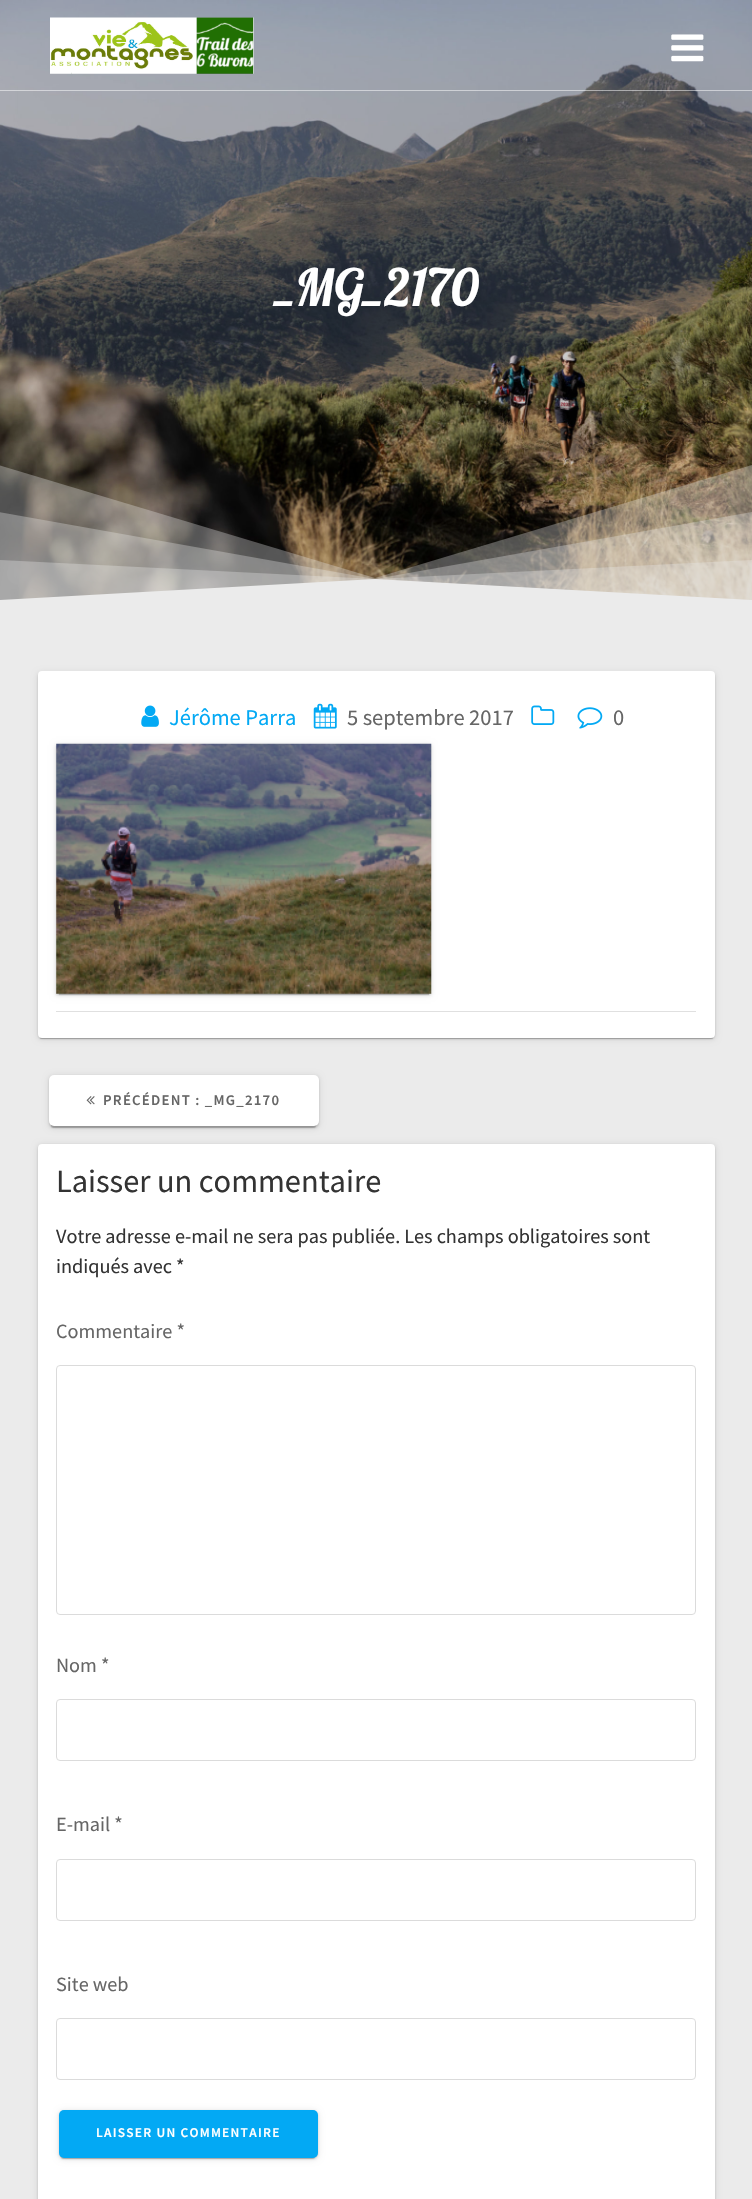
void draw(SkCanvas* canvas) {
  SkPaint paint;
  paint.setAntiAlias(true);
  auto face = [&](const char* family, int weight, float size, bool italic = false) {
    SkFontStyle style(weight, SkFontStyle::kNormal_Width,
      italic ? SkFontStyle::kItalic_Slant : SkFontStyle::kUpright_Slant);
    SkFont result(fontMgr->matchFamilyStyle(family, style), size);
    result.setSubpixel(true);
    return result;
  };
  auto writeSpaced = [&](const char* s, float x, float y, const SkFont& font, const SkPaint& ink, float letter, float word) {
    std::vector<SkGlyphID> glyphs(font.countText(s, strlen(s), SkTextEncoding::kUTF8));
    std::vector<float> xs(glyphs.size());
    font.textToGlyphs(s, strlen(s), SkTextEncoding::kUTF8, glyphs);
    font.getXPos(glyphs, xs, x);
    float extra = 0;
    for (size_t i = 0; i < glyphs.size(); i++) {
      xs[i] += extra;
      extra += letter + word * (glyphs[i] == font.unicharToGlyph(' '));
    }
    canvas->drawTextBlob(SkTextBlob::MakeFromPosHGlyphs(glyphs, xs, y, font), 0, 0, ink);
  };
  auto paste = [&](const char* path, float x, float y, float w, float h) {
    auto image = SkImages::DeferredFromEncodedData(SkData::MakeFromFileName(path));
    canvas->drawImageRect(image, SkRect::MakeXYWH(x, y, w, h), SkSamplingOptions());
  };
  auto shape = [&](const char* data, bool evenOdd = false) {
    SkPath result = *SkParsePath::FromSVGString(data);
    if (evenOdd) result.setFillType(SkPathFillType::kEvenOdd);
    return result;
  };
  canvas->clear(0xffebebeb);
  paste("img/3.png", 0, 0, 752, 600);
  paint.setColor(0x80ffffff);
  canvas->drawRect(SkRect::MakeXYWH(0, 90, 752, 1), paint);
  paste("img/1.png", 50, 17, 204, 57);
  paste("img/2.png", 671, 34, 33, 28);
  paint.setColor(0x54ebebeb);
  canvas->drawPath(shape("M752 610V465L375 578L-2 465V610Z"), paint);
  canvas->drawPath(shape("M752 610V512L375 579L-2 512V610Z"), paint);
  canvas->drawPath(shape("M752 610V560L375 579L-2 560V610Z"), paint);
  paint.setColor(0xffebebeb);
  canvas->drawPath(shape("M752 610V600L375 579L-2 600V610Z"), paint);
  paint.setColor(0x1f000000);
  paint.setMaskFilter(SkMaskFilter::MakeBlur(kNormal_SkBlurStyle, 3));
  canvas->drawRoundRect(SkRect::MakeXYWH(38, 673, 677, 366), 4, 4, paint);
  paint.setMaskFilter(nullptr);
  paint.setColor(0x33000000);
  paint.setMaskFilter(SkMaskFilter::MakeBlur(kNormal_SkBlurStyle, 0.5f));
  canvas->drawRoundRect(SkRect::MakeXYWH(40, 678, 673, 361), 1, 1, paint);
  paint.setMaskFilter(nullptr);
  paint.setColor(0x24000000);
  paint.setMaskFilter(SkMaskFilter::MakeBlur(kNormal_SkBlurStyle, 1));
  canvas->drawRoundRect(SkRect::MakeXYWH(38, 673, 677, 366), 4, 4, paint);
  paint.setMaskFilter(nullptr);
  paint.setColor(0xffffffff);
  canvas->drawRoundRect(SkRect::MakeXYWH(38, 671, 677, 367), 4, 4, paint);
  paste("img/4.png", 141, 705, 18, 22);
  paste("img/5.png", 313, 703, 24, 26);
  paste("img/6.png", 531, 705, 24, 20);
  paste("img/7.png", 577, 707, 26, 22);
  paint.setColor(0xffe0e0e0);
  canvas->drawRect(SkRect::MakeXYWH(56, 1011, 640, 1), paint);
  paint.setColor(0x1f000000);
  paint.setMaskFilter(SkMaskFilter::MakeBlur(kNormal_SkBlurStyle, 3));
  canvas->drawRect(SkRect::MakeXYWH(56, 745, 375, 250), paint);
  paint.setMaskFilter(nullptr);
  paint.setColor(0x24000000);
  paint.setMaskFilter(SkMaskFilter::MakeBlur(kNormal_SkBlurStyle, 1));
  canvas->drawRect(SkRect::MakeXYWH(56, 745, 375, 250), paint);
  paint.setMaskFilter(nullptr);
  paint.setColor(0x33000000);
  paint.setMaskFilter(SkMaskFilter::MakeBlur(kNormal_SkBlurStyle, 0.5f));
  canvas->drawRect(SkRect::MakeXYWH(59, 750, 370, 245), paint);
  paint.setMaskFilter(nullptr);
  paste("img/8.png", 56, 743, 376, 251);
  paint.setColor(0x1f000000);
  paint.setMaskFilter(SkMaskFilter::MakeBlur(kNormal_SkBlurStyle, 3));
  canvas->drawRoundRect(SkRect::MakeXYWH(49, 1076, 270, 52), 5, 5, paint);
  paint.setMaskFilter(nullptr);
  paint.setColor(0x33000000);
  paint.setMaskFilter(SkMaskFilter::MakeBlur(kNormal_SkBlurStyle, 0.5f));
  canvas->drawRoundRect(SkRect::MakeXYWH(51, 1081, 265, 47), 2.5f, 2.5f, paint);
  paint.setMaskFilter(nullptr);
  paint.setColor(0x24000000);
  paint.setMaskFilter(SkMaskFilter::MakeBlur(kNormal_SkBlurStyle, 1));
  canvas->drawRoundRect(SkRect::MakeXYWH(49, 1076, 270, 52), 5, 5, paint);
  paint.setMaskFilter(nullptr);
  paint.setColor(0xffffffff);
  canvas->drawRoundRect(SkRect::MakeXYWH(49, 1075, 270, 51), 5, 5, paint);
  paste("img/9.png", 86, 1096, 9, 9);
  paint.setColor(0x1f000000);
  paint.setMaskFilter(SkMaskFilter::MakeBlur(kNormal_SkBlurStyle, 3));
  canvas->drawRoundRect(SkRect::MakeXYWH(38, 1145, 677, 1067), 4, 4, paint);
  paint.setMaskFilter(nullptr);
  paint.setColor(0x24000000);
  paint.setMaskFilter(SkMaskFilter::MakeBlur(kNormal_SkBlurStyle, 1));
  canvas->drawRoundRect(SkRect::MakeXYWH(38, 1145, 677, 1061), 4, 4, paint);
  paint.setMaskFilter(nullptr);
  paint.setColor(0xffffffff);
  canvas->drawRoundRect(SkRect::MakeXYWH(38, 1144, 677, 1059), 4, 4, paint);
  paint.setStroke(true);
  paint.setStrokeWidth(1);
  paint.setColor(0xffdbdbdb);
  canvas->drawRoundRect(SkRect::MakeXYWH(56.5f, 1365.5f, 639, 249), 3.5f, 3.5f, paint);
  canvas->drawRoundRect(SkRect::MakeXYWH(56.5f, 1699.5f, 639, 61), 3.5f, 3.5f, paint);
  canvas->drawRoundRect(SkRect::MakeXYWH(56.5f, 1859.5f, 639, 61), 3.5f, 3.5f, paint);
  canvas->drawRoundRect(SkRect::MakeXYWH(56.5f, 2018.5f, 639, 61), 3.5f, 3.5f, paint);
  paint.setStroke(false);
  paint.setColor(0x1f000000);
  paint.setMaskFilter(SkMaskFilter::MakeBlur(kNormal_SkBlurStyle, 3));
  canvas->drawRoundRect(SkRect::MakeXYWH(59, 2111, 259, 48), 5, 5, paint);
  paint.setMaskFilter(nullptr);
  paint.setColor(0x33000000);
  paint.setMaskFilter(SkMaskFilter::MakeBlur(kNormal_SkBlurStyle, 0.5f));
  canvas->drawRoundRect(SkRect::MakeXYWH(61, 2116, 254, 43), 2.5f, 2.5f, paint);
  paint.setMaskFilter(nullptr);
  paint.setColor(0x24000000);
  paint.setMaskFilter(SkMaskFilter::MakeBlur(kNormal_SkBlurStyle, 1));
  canvas->drawRoundRect(SkRect::MakeXYWH(59, 2111, 259, 48), 5, 5, paint);
  paint.setMaskFilter(nullptr);
  paint.setColor(0xff03a9f4);
  canvas->drawRoundRect(SkRect::MakeXYWH(59, 2110, 259, 48), 5, 5, paint);
  auto f0 = face("Lobster Two", 700, 49.5f, true);
  paint.setColor(0xffffffff);
  canvas->drawString("_MG_2170", 274, 306, f0, paint);
  auto f1 = face("Source Sans Pro", 400, 22.5f);
  paint.setColor(0xff03a9f4);
  canvas->drawString("Jérôme Parra", 169, 725, f1, paint);
  paint.setColor(0xff666666);
  canvas->drawString("5 septembre 2017", 347, 725, f1, paint);
  canvas->drawString("0", 613, 725, f1, paint);
  auto f2 = face("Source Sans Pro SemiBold", 600, 14.8f);
  writeSpaced("PRÉCÉDENT : _MG_2170", 103, 1105, f2, paint, 1.25f, 0);
  auto f3 = face("Source Sans Pro", 400, 32.4f);
  paint.setColor(0xff333333);
  canvas->drawString("Laisser un commentaire", 56, 1192, f3, paint);
  auto f4 = face("Source Sans Pro", 400, 20.25f);
  canvas->drawString("Votre adresse e-mail ne sera pas publiée. Les champs obligatoires sont", 56, 1243, f4, paint);
  canvas->drawString("indiqués avec *", 56, 1273, f4, paint);
  paint.setColor(0xff666666);
  {
    const struct { const char* s; float x, y; } items[] = {
      {"Commentaire *", 56, 1338},
      {"Nom *", 56, 1672},
      {"E-mail *", 56, 1831},
      {"Site web", 56, 1991},
    };
    for (auto [s, x, y] : items) {
      canvas->drawString(s, x, y, f4, paint);
    }
  }
  auto f5 = face("Source Sans Pro SemiBold", 600, 13.4f);
  paint.setColor(0xffffffff);
  writeSpaced("LAISSER UN COMMENTAIRE", 96, 2137, f5, paint, 1.25f, 0);
}
